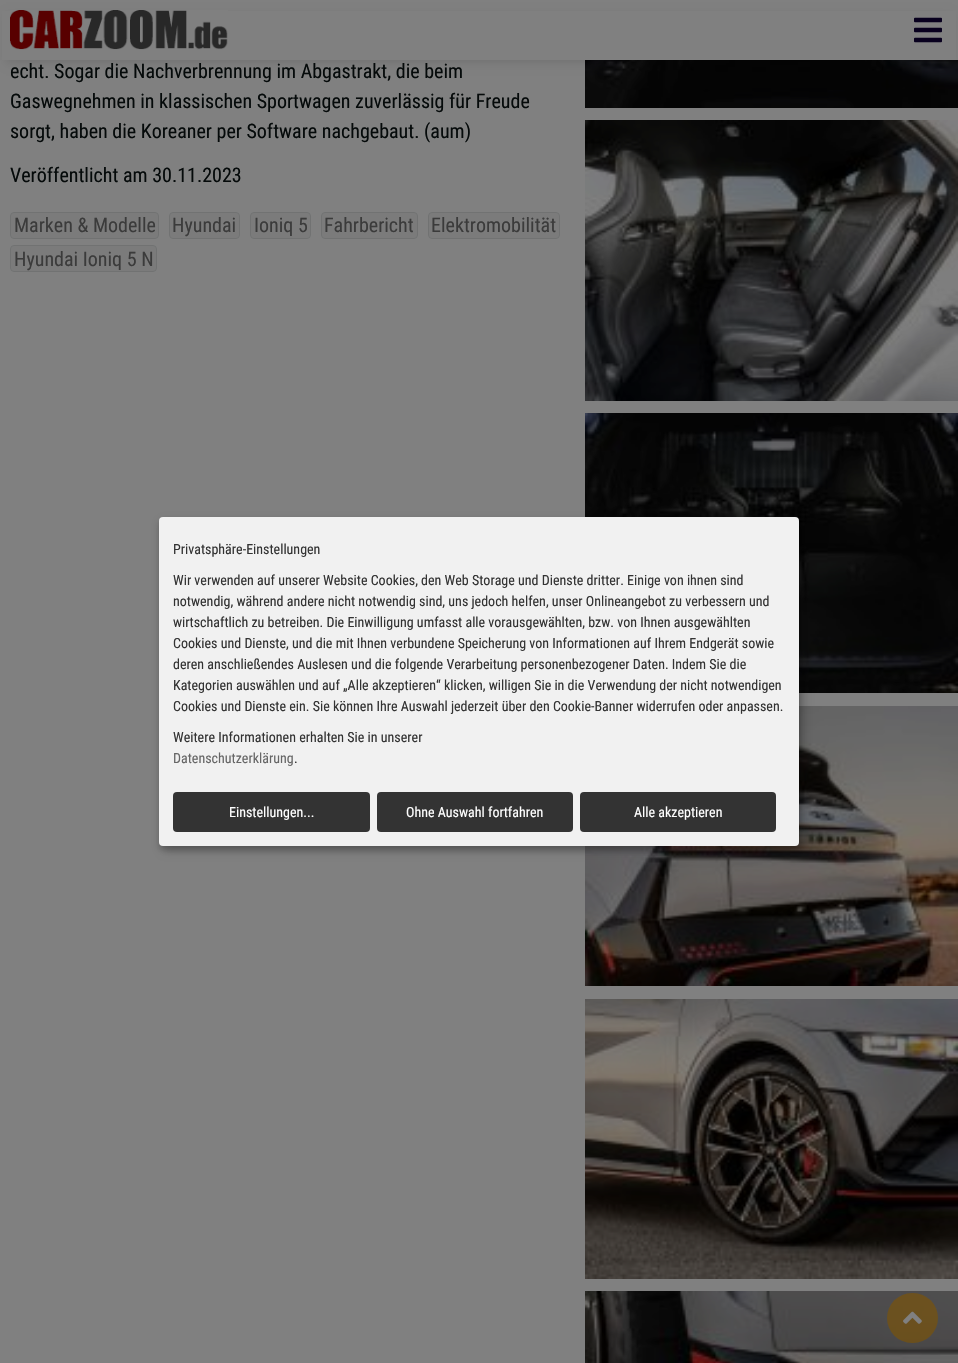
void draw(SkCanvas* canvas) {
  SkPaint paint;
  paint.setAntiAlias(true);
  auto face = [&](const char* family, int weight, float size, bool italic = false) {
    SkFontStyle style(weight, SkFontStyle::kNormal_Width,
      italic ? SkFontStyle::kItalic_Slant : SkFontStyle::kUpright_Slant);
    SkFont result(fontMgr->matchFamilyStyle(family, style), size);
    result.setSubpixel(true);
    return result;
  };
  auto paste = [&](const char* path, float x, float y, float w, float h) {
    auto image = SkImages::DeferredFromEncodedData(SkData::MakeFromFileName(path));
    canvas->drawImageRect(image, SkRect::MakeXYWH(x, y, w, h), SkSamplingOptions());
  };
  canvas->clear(0xff808080);
  paste("img/3.png", 585, 60, 373, 48);
  paint.setColor(0x1a000000);
  paint.setMaskFilter(SkMaskFilter::MakeBlur(kNormal_SkBlurStyle, 4.5f));
  canvas->drawRect(SkRect::MakeXYWH(6, 15, 946, 48), paint);
  paint.setMaskFilter(nullptr);
  paint.setColor(0xff808080);
  canvas->drawRect(SkRect::MakeXYWH(2, 11, 954, 49), paint);
  paste("img/1.png", 10, 10, 218, 40);
  paste("img/2.png", 914, 17, 28, 26);
  paint.setColor(0xff7b7b7b);
  canvas->drawRoundRect(SkRect::MakeXYWH(10.5f, 212.5f, 148, 26), 3.5f, 3.5f, paint);
  paint.setStroke(true);
  paint.setStrokeWidth(1);
  paint.setColor(0xff717272);
  canvas->drawRoundRect(SkRect::MakeXYWH(10.5f, 212.5f, 148, 26), 3.5f, 3.5f, paint);
  paint.setStroke(false);
  paint.setColor(0xff7b7b7b);
  canvas->drawRoundRect(SkRect::MakeXYWH(169.5f, 212.5f, 70, 26), 3.5f, 3.5f, paint);
  paint.setStroke(true);
  paint.setColor(0xff717272);
  canvas->drawRoundRect(SkRect::MakeXYWH(169.5f, 212.5f, 70, 26), 3.5f, 3.5f, paint);
  paint.setStroke(false);
  paint.setColor(0xff7b7b7b);
  canvas->drawRoundRect(SkRect::MakeXYWH(250.5f, 212.5f, 60, 26), 3.5f, 3.5f, paint);
  paint.setStroke(true);
  paint.setColor(0xff717272);
  canvas->drawRoundRect(SkRect::MakeXYWH(250.5f, 212.5f, 60, 26), 3.5f, 3.5f, paint);
  paint.setStroke(false);
  paint.setColor(0xff7b7b7b);
  canvas->drawRoundRect(SkRect::MakeXYWH(321.5f, 212.5f, 96, 26), 3.5f, 3.5f, paint);
  paint.setStroke(true);
  paint.setColor(0xff717272);
  canvas->drawRoundRect(SkRect::MakeXYWH(321.5f, 212.5f, 96, 26), 3.5f, 3.5f, paint);
  paint.setStroke(false);
  paint.setColor(0xff7b7b7b);
  canvas->drawRoundRect(SkRect::MakeXYWH(428.5f, 212.5f, 131, 26), 3.5f, 3.5f, paint);
  paint.setStroke(true);
  paint.setColor(0xff717272);
  canvas->drawRoundRect(SkRect::MakeXYWH(428.5f, 212.5f, 131, 26), 3.5f, 3.5f, paint);
  paint.setStroke(false);
  paint.setColor(0xff7b7b7b);
  canvas->drawRoundRect(SkRect::MakeXYWH(10.5f, 245.5f, 146, 26), 3.5f, 3.5f, paint);
  paint.setStroke(true);
  paint.setColor(0xff717272);
  canvas->drawRoundRect(SkRect::MakeXYWH(10.5f, 245.5f, 146, 26), 3.5f, 3.5f, paint);
  paste("img/4.png", 585, 120, 373, 281);
  paste("img/5.png", 585, 413, 373, 280);
  paste("img/6.png", 585, 706, 373, 280);
  paste("img/7.png", 585, 999, 373, 280);
  paste("img/8.png", 585, 1291, 373, 72);
  paint.setStroke(false);
  paint.setColor(0x30000000);
  paint.setMaskFilter(SkMaskFilter::MakeBlur(kNormal_SkBlurStyle, 5));
  canvas->drawRoundRect(SkRect::MakeXYWH(164, 522, 640, 329), 4, 4, paint);
  paint.setMaskFilter(nullptr);
  paint.setColor(0x33000000);
  paint.setMaskFilter(SkMaskFilter::MakeBlur(kNormal_SkBlurStyle, 3));
  canvas->drawRoundRect(SkRect::MakeXYWH(159, 521, 640, 329), 4, 4, paint);
  paint.setMaskFilter(nullptr);
  paint.setColor(0xfff1f1f1);
  canvas->drawRoundRect(SkRect::MakeXYWH(159, 517, 640, 329), 4, 4, paint);
  paint.setColor(0xff333333);
  canvas->drawRoundRect(SkRect::MakeXYWH(173, 792, 197, 40), 4, 4, paint);
  canvas->drawRoundRect(SkRect::MakeXYWH(377, 792, 196, 40), 4, 4, paint);
  canvas->drawRoundRect(SkRect::MakeXYWH(580, 792, 196, 40), 4, 4, paint);
  paint.setColor(0x997e5400);
  canvas->drawRoundRect(SkRect::MakeXYWH(887, 1293, 51, 50), 25, 25, paint);
  paste("img/9.png", 903, 1311, 19, 13);
  auto f0 = face("Roboto Condensed", 400, 20);
  paint.setColor(0xff050a0a);
  {
    const struct { const char* s; float x, y; } items[] = {
      {"echt. Sogar die Nachverbrennung im Abgastrakt, die beim", 10, 78},
      {"Gaswegnehmen in klassischen Sportwagen zuverlässig für Freude", 10, 108},
      {"sorgt, haben die Koreaner per Software nachgebaut. (aum)", 10, 138},
      {"Veröffentlicht am 30.11.2023", 10, 182},
    };
    for (auto [s, x, y] : items) {
      canvas->drawString(s, x, y, f0, paint);
    }
  }
  paint.setColor(0xff3b3b3b);
  {
    const struct { const char* s; float x, y; } items[] = {
      {"Marken & Modelle", 14, 232},
      {"Hyundai", 172, 232},
      {"Ioniq 5", 254, 232},
      {"Fahrbericht", 324, 232},
      {"Elektromobilität", 431, 232},
      {"Hyundai Ioniq 5 N", 14, 266},
    };
    for (auto [s, x, y] : items) {
      canvas->drawString(s, x, y, f0, paint);
    }
  }
  auto f1 = face("Roboto Condensed", 400, 14);
  paint.setColor(0xff333333);
  {
    const struct { const char* s; float x, y; } items[] = {
      {"Privatsphäre-Einstellungen", 173, 554},
      {"Wir verwenden auf unserer Website Cookies, den Web Storage und Dienste dritter. Einige von ihnen sind", 173, 585},
      {"notwendig, während andere nicht notwendig sind, uns jedoch helfen, unser Onlineangebot zu verbessern und", 173, 606},
      {"wirtschaftlich zu betreiben. Die Einwilligung umfasst alle vorausgewählten, bzw. von Ihnen ausgewählten", 173, 627},
      {"Cookies und Dienste, und die mit Ihnen verbundene Speicherung von Informationen auf Ihrem Endgerät sowie", 173, 648},
      {"deren anschließendes Auslesen und die folgende Verarbeitung personenbezogener Daten. Indem Sie die", 173, 669},
      {"Kategorien auswählen und auf „Alle akzeptieren“ klicken, willigen Sie in die Verwendung der nicht notwendigen", 173, 690},
      {"Cookies und Dienste ein. Sie können Ihre Auswahl jederzeit über den Cookie-Banner widerrufen oder anpassen.", 173, 711},
      {"Weitere Informationen erhalten Sie in unserer", 173, 742},
    };
    for (auto [s, x, y] : items) {
      canvas->drawString(s, x, y, f1, paint);
    }
  }
  paint.setColor(0xff666666);
  canvas->drawString("Datenschutzerklärung", 173, 763, f1, paint);
  paint.setColor(0xff333333);
  canvas->drawString(".", 294, 763, f1, paint);
  paint.setColor(0xffffffff);
  {
    const struct { const char* s; float x, y; } items[] = {
      {"Einstellungen...", 229, 817},
      {"Ohne Auswahl fortfahren", 406, 817},
      {"Alle akzeptieren", 634, 817},
    };
    for (auto [s, x, y] : items) {
      canvas->drawString(s, x, y, f1, paint);
    }
  }
}
